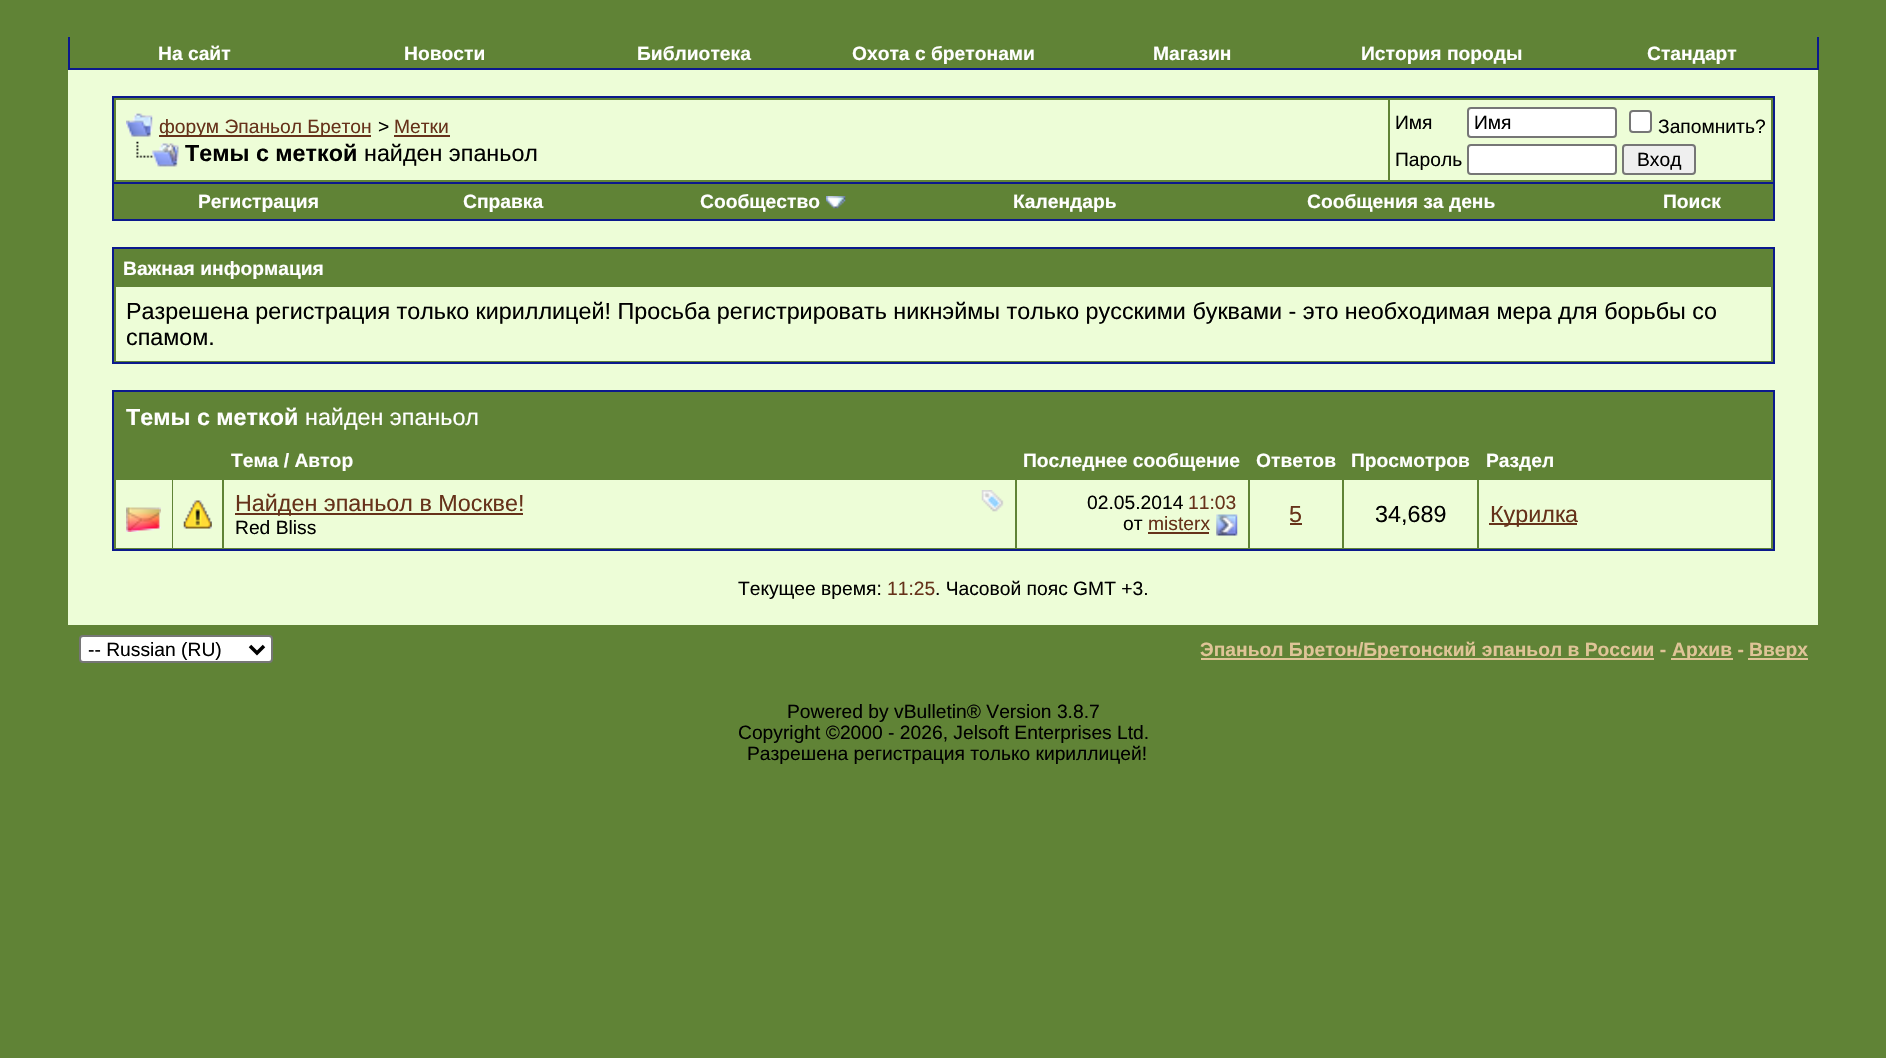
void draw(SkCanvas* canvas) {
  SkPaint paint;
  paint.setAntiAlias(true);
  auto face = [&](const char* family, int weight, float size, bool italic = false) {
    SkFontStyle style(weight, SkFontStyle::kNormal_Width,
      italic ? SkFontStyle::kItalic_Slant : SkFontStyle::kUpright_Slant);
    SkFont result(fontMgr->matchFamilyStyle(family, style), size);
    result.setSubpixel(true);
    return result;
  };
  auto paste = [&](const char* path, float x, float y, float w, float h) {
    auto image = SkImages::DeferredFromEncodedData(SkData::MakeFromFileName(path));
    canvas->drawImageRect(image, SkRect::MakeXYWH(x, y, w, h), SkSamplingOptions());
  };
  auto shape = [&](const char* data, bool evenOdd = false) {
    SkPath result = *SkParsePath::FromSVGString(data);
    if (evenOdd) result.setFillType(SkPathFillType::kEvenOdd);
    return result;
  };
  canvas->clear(0xff608336);
  {
    const struct { float x, y, w, h; SkColor color; } items[] = {
      {1817, 37, 2, 33, 0xff0b198c},
      {68, 68, 1750, 2, 0xff0b198c},
      {68, 37, 2, 33, 0xff0b198c},
      {68, 70, 1750, 555, 0xffedfdd7},
    };
    for (auto [x, y, w, h, color] : items) {
      paint.setColor(color);
      canvas->drawRect(SkRect::MakeXYWH(x, y, w, h), paint);
    }
  }
  paint.setColor(0xff608336);
  canvas->drawRect(SkRect::MakeXYWH(113, 97, 1661, 86), paint);
  paint.setStroke(true);
  paint.setStrokeWidth(2);
  paint.setColor(0xff0b198c);
  canvas->drawRect(SkRect::MakeXYWH(113, 97, 1661, 86), paint);
  paint.setStroke(false);
  paint.setColor(0xffedfdd7);
  canvas->drawRect(SkRect::MakeXYWH(116, 100, 1272, 80), paint);
  paste("img/1.png", 126, 113, 27, 24);
  paint.setColor(0xff66321a);
  canvas->drawRect(SkRect::MakeXYWH(159, 135, 212, 2), paint);
  canvas->drawRect(SkRect::MakeXYWH(394, 135, 56, 2), paint);
  paste("img/2.png", 136, 141, 43, 26);
  paint.setColor(0xffedfdd7);
  canvas->drawRect(SkRect::MakeXYWH(1390, 100, 381, 80), paint);
  paint.setColor(0xffffffff);
  canvas->drawRoundRect(SkRect::MakeXYWH(1468, 108, 148, 29), 3, 3, paint);
  paint.setStroke(true);
  paint.setColor(0xff767676);
  canvas->drawRoundRect(SkRect::MakeXYWH(1468, 108, 148, 29), 3, 3, paint);
  paint.setStroke(false);
  paint.setColor(0xffffffff);
  canvas->drawRoundRect(SkRect::MakeXYWH(1630, 111, 21, 21), 3, 3, paint);
  paint.setStroke(true);
  paint.setColor(0xff767676);
  canvas->drawRoundRect(SkRect::MakeXYWH(1630, 111, 21, 21), 3, 3, paint);
  paint.setStroke(false);
  paint.setColor(0xffffffff);
  canvas->drawRoundRect(SkRect::MakeXYWH(1468, 145, 148, 29), 3, 3, paint);
  paint.setStroke(true);
  paint.setColor(0xff767676);
  canvas->drawRoundRect(SkRect::MakeXYWH(1468, 145, 148, 29), 3, 3, paint);
  paint.setStroke(false);
  paint.setColor(0xffefefef);
  canvas->drawRoundRect(SkRect::MakeXYWH(1623, 145, 72, 29), 3, 3, paint);
  paint.setStroke(true);
  paint.setColor(0xff767676);
  canvas->drawRoundRect(SkRect::MakeXYWH(1623, 145, 72, 29), 3, 3, paint);
  paint.setStroke(false);
  {
    const struct { float x, y, w, h; SkColor color; } items[] = {
      {114, 184, 1659, 35, 0xff608336},
      {1773, 184, 2, 37, 0xff0b198c},
      {112, 219, 1663, 2, 0xff0b198c},
      {112, 184, 2, 37, 0xff0b198c},
    };
    for (auto [x, y, w, h, color] : items) {
      paint.setColor(color);
      canvas->drawRect(SkRect::MakeXYWH(x, y, w, h), paint);
    }
  }
  paste("img/3.png", 826, 196, 20, 13);
  paint.setColor(0xff608336);
  canvas->drawRect(SkRect::MakeXYWH(113, 248, 1661, 115), paint);
  paint.setStroke(true);
  paint.setColor(0xff0b198c);
  canvas->drawRect(SkRect::MakeXYWH(113, 248, 1661, 115), paint);
  paint.setStroke(false);
  paint.setColor(0xffedfdd7);
  canvas->drawRect(SkRect::MakeXYWH(116, 287, 1655, 74), paint);
  paint.setColor(0xff608336);
  canvas->drawRect(SkRect::MakeXYWH(113, 391, 1661, 159), paint);
  paint.setStroke(true);
  paint.setColor(0xff0b198c);
  canvas->drawRect(SkRect::MakeXYWH(113, 391, 1661, 159), paint);
  paint.setStroke(false);
  paint.setColor(0xffedfdd7);
  canvas->drawRect(SkRect::MakeXYWH(116, 480, 56, 68), paint);
  paste("img/4.png", 126, 507, 35, 25);
  canvas->drawRect(SkRect::MakeXYWH(173, 480, 49, 68), paint);
  paste("img/5.png", 183, 500, 29, 29);
  canvas->drawRect(SkRect::MakeXYWH(224, 480, 791, 68), paint);
  paint.setColor(0xff66321a);
  canvas->drawRect(SkRect::MakeXYWH(235, 513, 288, 2), paint);
  paste("img/6.png", 981, 490, 23, 22);
  paint.setColor(0xffedfdd7);
  canvas->drawRect(SkRect::MakeXYWH(1017, 480, 231, 68), paint);
  paint.setColor(0xff66321a);
  canvas->drawRect(SkRect::MakeXYWH(1148, 532, 61, 2), paint);
  paste("img/7.png", 1216, 514, 22, 22);
  {
    const struct { float x, y, w, h; SkColor color; } items[] = {
      {1250, 480, 92, 68, 0xffedfdd7},
      {1290, 523, 12, 2, 0xff66321a},
      {1344, 480, 133, 68, 0xffedfdd7},
      {1479, 480, 292, 68, 0xffedfdd7},
      {1489, 523, 88, 2, 0xff66321a},
    };
    for (auto [x, y, w, h, color] : items) {
      paint.setColor(color);
      canvas->drawRect(SkRect::MakeXYWH(x, y, w, h), paint);
    }
  }
  paint.setColor(0xffffffff);
  canvas->drawRoundRect(SkRect::MakeXYWH(80, 636, 192, 26), 3, 3, paint);
  paint.setStroke(true);
  paint.setColor(0xff767676);
  canvas->drawRoundRect(SkRect::MakeXYWH(80, 636, 192, 26), 3, 3, paint);
  paint.setStrokeWidth(3.5f);
  paint.setColor(0xff000000);
  canvas->drawPath(shape("M250 646L257 653L264 646"), paint);
  paint.setStroke(false);
  {
    const struct { float x, y, w, h; SkColor color; } items[] = {
      {1201, 658, 453, 2, 0xffdfc497},
      {1671, 658, 62, 2, 0xffdfc497},
      {1748, 658, 60, 2, 0xffdfc497},
    };
    for (auto [x, y, w, h, color] : items) {
      paint.setColor(color);
      canvas->drawRect(SkRect::MakeXYWH(x, y, w, h), paint);
    }
  }
  auto f0 = face("Liberation Sans", 700, 19.25f);
  paint.setColor(0xffffffff);
  {
    const struct { const char* s; float x, y; } items[] = {
      {"На сайт", 158, 60},
      {"Новости", 404, 60},
      {"Библиотека", 637, 60},
      {"Охота с бретонами", 852, 60},
      {"Магазин", 1153, 60},
      {"История породы", 1361, 60},
      {"Стандарт", 1647, 60},
    };
    for (auto [s, x, y] : items) {
      canvas->drawString(s, x, y, f0, paint);
    }
  }
  auto f1 = face("Liberation Sans", 400, 19.25f);
  paint.setColor(0xff66321a);
  canvas->drawString("форум Эпаньол Бретон", 159, 133, f1, paint);
  paint.setColor(0xff000000);
  canvas->drawString(">", 378, 133, f1, paint);
  paint.setColor(0xff66321a);
  canvas->drawString("Метки", 394, 133, f1, paint);
  auto f2 = face("Liberation Sans", 700, 23.33f);
  paint.setColor(0xff000000);
  canvas->drawString("Темы с меткой", 185, 161, f2, paint);
  auto f3 = face("Liberation Sans", 400, 23.33f);
  canvas->drawString("найден эпаньол", 364, 161, f3, paint);
  {
    const struct { const char* s; float x, y; } items[] = {
      {"Имя", 1395, 129},
      {"Имя", 1474, 129},
      {"Запомнить?", 1658, 133},
      {"Пароль", 1395, 166},
      {"Вход", 1637, 166},
    };
    for (auto [s, x, y] : items) {
      canvas->drawString(s, x, y, f1, paint);
    }
  }
  paint.setColor(0xffffffff);
  {
    const struct { const char* s; float x, y; } items[] = {
      {"Регистрация", 198, 208},
      {"Справка", 463, 208},
      {"Сообщество", 700, 208},
      {"Календарь", 1013, 208},
      {"Сообщения за день", 1307, 208},
      {"Поиск", 1663, 208},
      {"Важная информация", 123, 275},
    };
    for (auto [s, x, y] : items) {
      canvas->drawString(s, x, y, f0, paint);
    }
  }
  paint.setColor(0xff000000);
  canvas->drawString("Разрешена регистрация только кириллицей! Просьба регистрировать никнэймы только русскими буквами - это необходимая мера для борьбы со", 126, 319, f3, paint);
  canvas->drawString("спамом.", 126, 345, f3, paint);
  paint.setColor(0xffffffff);
  canvas->drawString("Темы с меткой", 126, 425, f2, paint);
  canvas->drawString("найден эпаньол", 305, 425, f3, paint);
  {
    const struct { const char* s; float x, y; } items[] = {
      {"Тема / Автор", 231, 467},
      {"Последнее сообщение", 1023, 467},
      {"Ответов", 1256, 467},
      {"Просмотров", 1351, 467},
      {"Раздел", 1486, 467},
    };
    for (auto [s, x, y] : items) {
      canvas->drawString(s, x, y, f0, paint);
    }
  }
  paint.setColor(0xff66321a);
  canvas->drawString("Найден эпаньол в Москве!", 235, 511, f3, paint);
  paint.setColor(0xff000000);
  canvas->drawString("Red Bliss", 235, 534, f1, paint);
  canvas->drawString("02.05.2014", 1087, 509, f1, paint);
  paint.setColor(0xff66321a);
  canvas->drawString("11:03", 1188, 509, f1, paint);
  paint.setColor(0xff000000);
  canvas->drawString("от", 1123, 530, f1, paint);
  paint.setColor(0xff66321a);
  canvas->drawString("misterx", 1148, 530, f1, paint);
  canvas->drawString("5", 1289, 522, f3, paint);
  paint.setColor(0xff000000);
  canvas->drawString("34,689", 1375, 522, f3, paint);
  paint.setColor(0xff66321a);
  canvas->drawString("Курилка", 1490, 522, f3, paint);
  paint.setColor(0xff000000);
  canvas->drawString("Текущее время:", 738, 595, f1, paint);
  paint.setColor(0xff66321a);
  canvas->drawString("11:25", 887, 595, f1, paint);
  paint.setColor(0xff000000);
  canvas->drawString(". Часовой пояс GMT +3.", 935, 595, f1, paint);
  canvas->drawString("-- Russian (RU)", 88, 656, f1, paint);
  paint.setColor(0xffdfc497);
  {
    const struct { const char* s; float x, y; } items[] = {
      {"Эпаньол Бретон/Бретонский эпаньол в России -", 1200, 656},
      {"Архив -", 1672, 656},
      {"Вверх", 1749, 656},
    };
    for (auto [s, x, y] : items) {
      canvas->drawString(s, x, y, f0, paint);
    }
  }
  paint.setColor(0xff000000);
  {
    const struct { const char* s; float x, y; } items[] = {
      {"Powered by vBulletin® Version 3.8.7", 787, 718},
      {"Copyright ©2000 - 2026, Jelsoft Enterprises Ltd.", 738, 739},
      {"Разрешена регистрация только кириллицей!", 747, 760},
    };
    for (auto [s, x, y] : items) {
      canvas->drawString(s, x, y, f1, paint);
    }
  }
}
